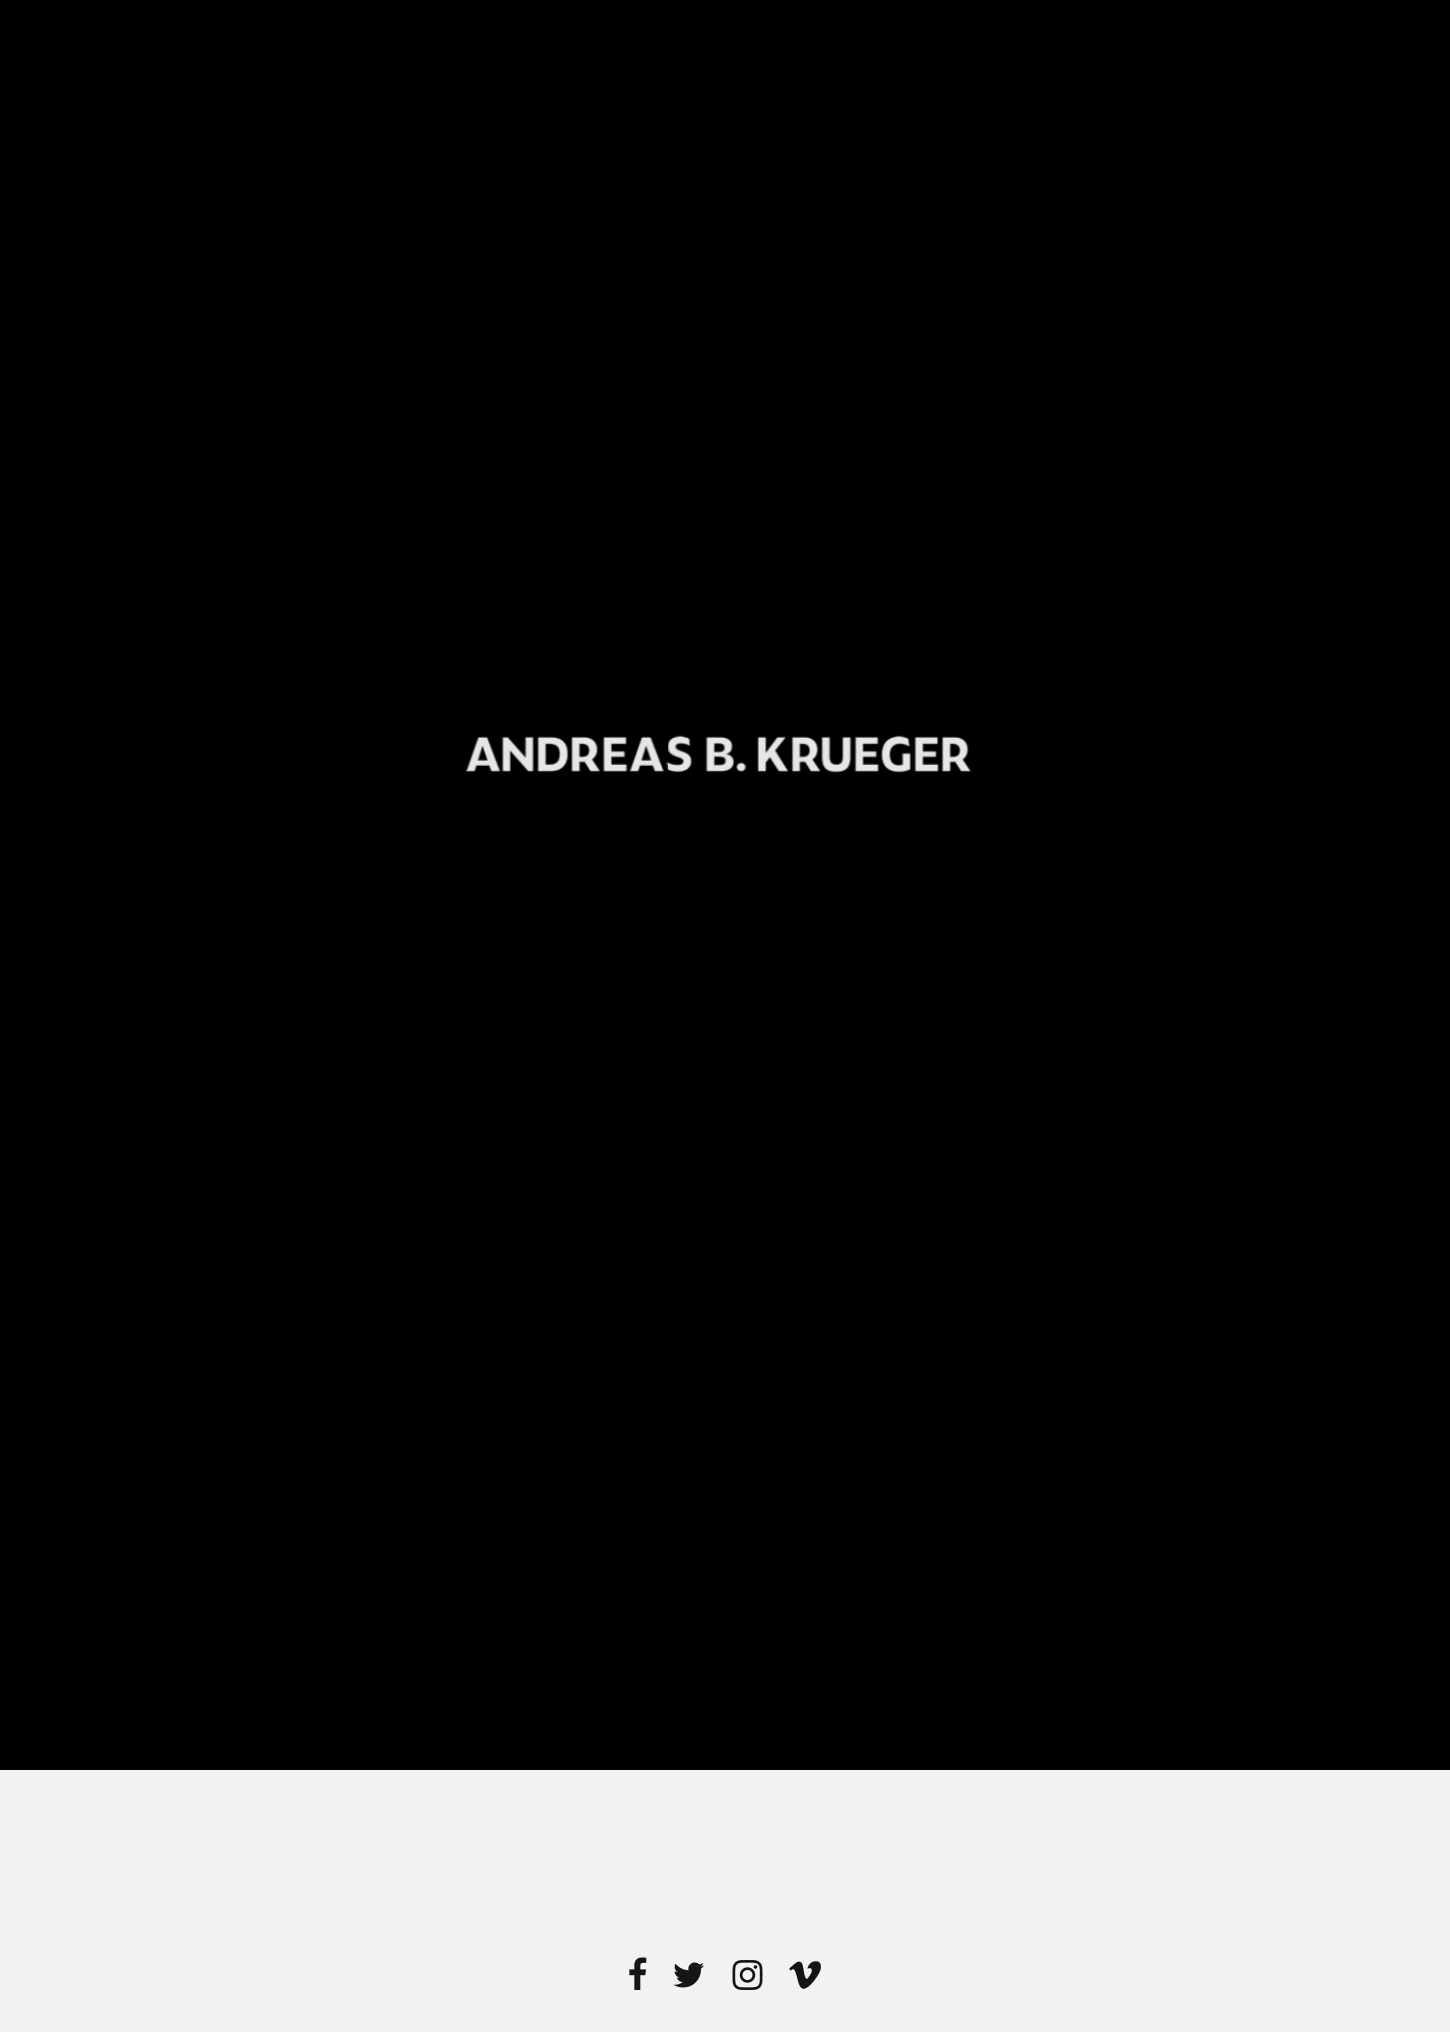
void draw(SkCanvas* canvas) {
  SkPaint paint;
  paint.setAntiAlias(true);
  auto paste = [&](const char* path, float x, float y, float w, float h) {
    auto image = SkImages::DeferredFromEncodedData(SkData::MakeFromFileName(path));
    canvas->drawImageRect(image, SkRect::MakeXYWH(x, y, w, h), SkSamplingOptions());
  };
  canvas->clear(0xfff2f2f2);
  paint.setColor(0xff000000);
  canvas->drawRect(SkRect::MakeXYWH(0, 0, 1450, 1770), paint);
  paste("img/1.png", 465, 735, 507, 38);
  paste("img/2.png", 629, 1957, 18, 33);
  paste("img/3.png", 673, 1962, 31, 26);
  paste("img/4.png", 732, 1960, 31, 30);
  paste("img/5.png", 789, 1961, 32, 28);
}
